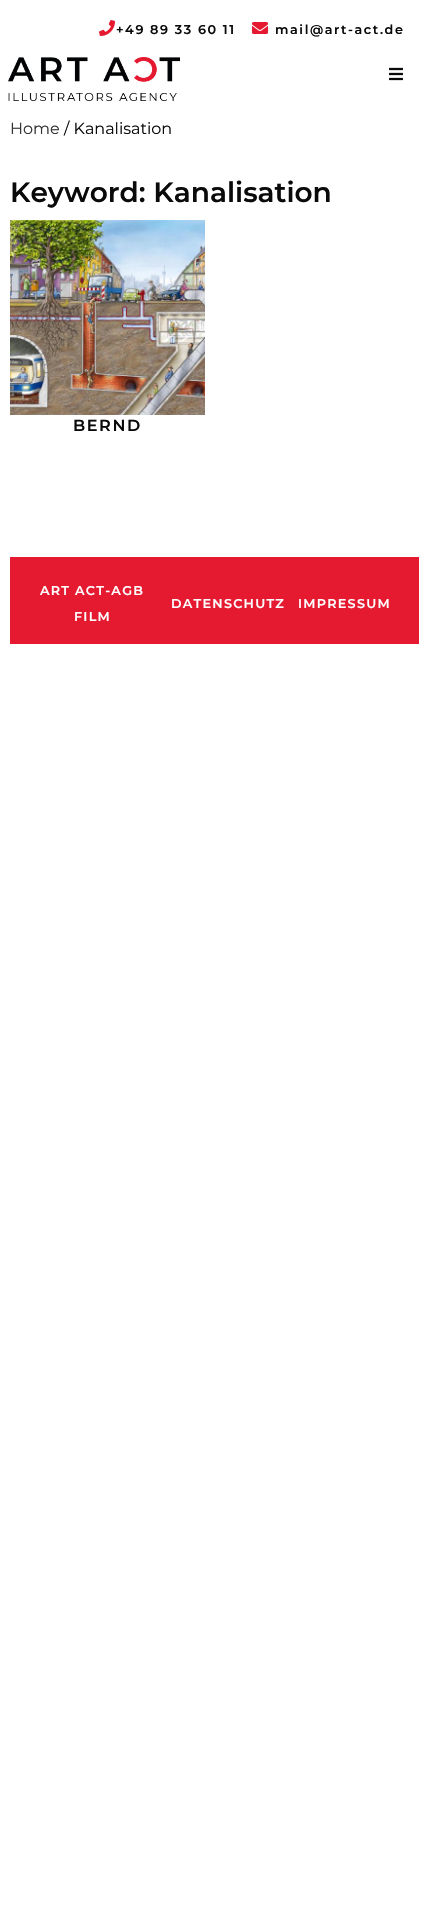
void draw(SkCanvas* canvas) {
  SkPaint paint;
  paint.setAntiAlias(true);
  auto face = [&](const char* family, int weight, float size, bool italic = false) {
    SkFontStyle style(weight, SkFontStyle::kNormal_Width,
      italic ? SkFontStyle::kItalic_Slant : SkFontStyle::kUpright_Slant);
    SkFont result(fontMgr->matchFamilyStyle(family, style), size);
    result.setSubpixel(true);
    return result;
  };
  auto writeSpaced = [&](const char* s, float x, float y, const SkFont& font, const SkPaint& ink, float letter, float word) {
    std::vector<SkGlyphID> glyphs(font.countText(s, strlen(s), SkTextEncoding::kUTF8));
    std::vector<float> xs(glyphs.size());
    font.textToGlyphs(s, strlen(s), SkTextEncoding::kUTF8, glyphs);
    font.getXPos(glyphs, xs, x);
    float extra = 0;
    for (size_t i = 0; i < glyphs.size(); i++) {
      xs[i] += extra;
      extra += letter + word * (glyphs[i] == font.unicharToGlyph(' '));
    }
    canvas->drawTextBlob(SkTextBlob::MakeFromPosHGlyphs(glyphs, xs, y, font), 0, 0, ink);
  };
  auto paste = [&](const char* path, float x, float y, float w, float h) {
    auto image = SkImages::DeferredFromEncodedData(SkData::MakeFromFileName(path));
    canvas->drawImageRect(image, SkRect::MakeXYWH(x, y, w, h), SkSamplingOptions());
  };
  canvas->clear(0xffffffff);
  paste("img/1.png", 99, 20, 16, 16);
  paste("img/2.png", 252, 22, 16, 12);
  paste("img/3.png", 8, 57, 172, 44);
  paste("img/4.png", 389, 67, 14, 14);
  paste("img/5.png", 10, 220, 195, 195);
  paint.setColor(0xffe51a30);
  canvas->drawRect(SkRect::MakeXYWH(10, 557, 409, 87), paint);
  auto f0 = face("Montserrat", 600, 12.75f);
  paint.setColor(0xff0a0a0a);
  writeSpaced("+49 89 33 60 11", 116, 34, f0, paint, 1.6f, 0);
  writeSpaced("mail@art-act.de", 275, 34, f0, paint, 1.6f, 0);
  auto f1 = face("Montserrat", 400, 16);
  paint.setColor(0xff333333);
  canvas->drawString("Home", 10, 134, f1, paint);
  paint.setColor(0xff0a0a0a);
  canvas->drawString("/ Kanalisation", 64, 134, f1, paint);
  auto f2 = face("Montserrat", 600, 28);
  canvas->drawString("Keyword: Kanalisation", 10, 202, f2, paint);
  auto f3 = face("Montserrat", 600, 16);
  writeSpaced("BERND", 73, 431, f3, paint, 1.6f, 0);
  paint.setColor(0xfffefefe);
  {
    const struct { const char* s; float x, y; } items[] = {
      {"ART ACT-AGB", 40, 595},
      {"FILM", 74, 621},
      {"DATENSCHUTZ", 171, 608},
      {"IMPRESSUM", 298, 608},
    };
    for (auto [s, x, y] : items) {
      writeSpaced(s, x, y, f0, paint, 1.25f, 0);
    }
  }
}
